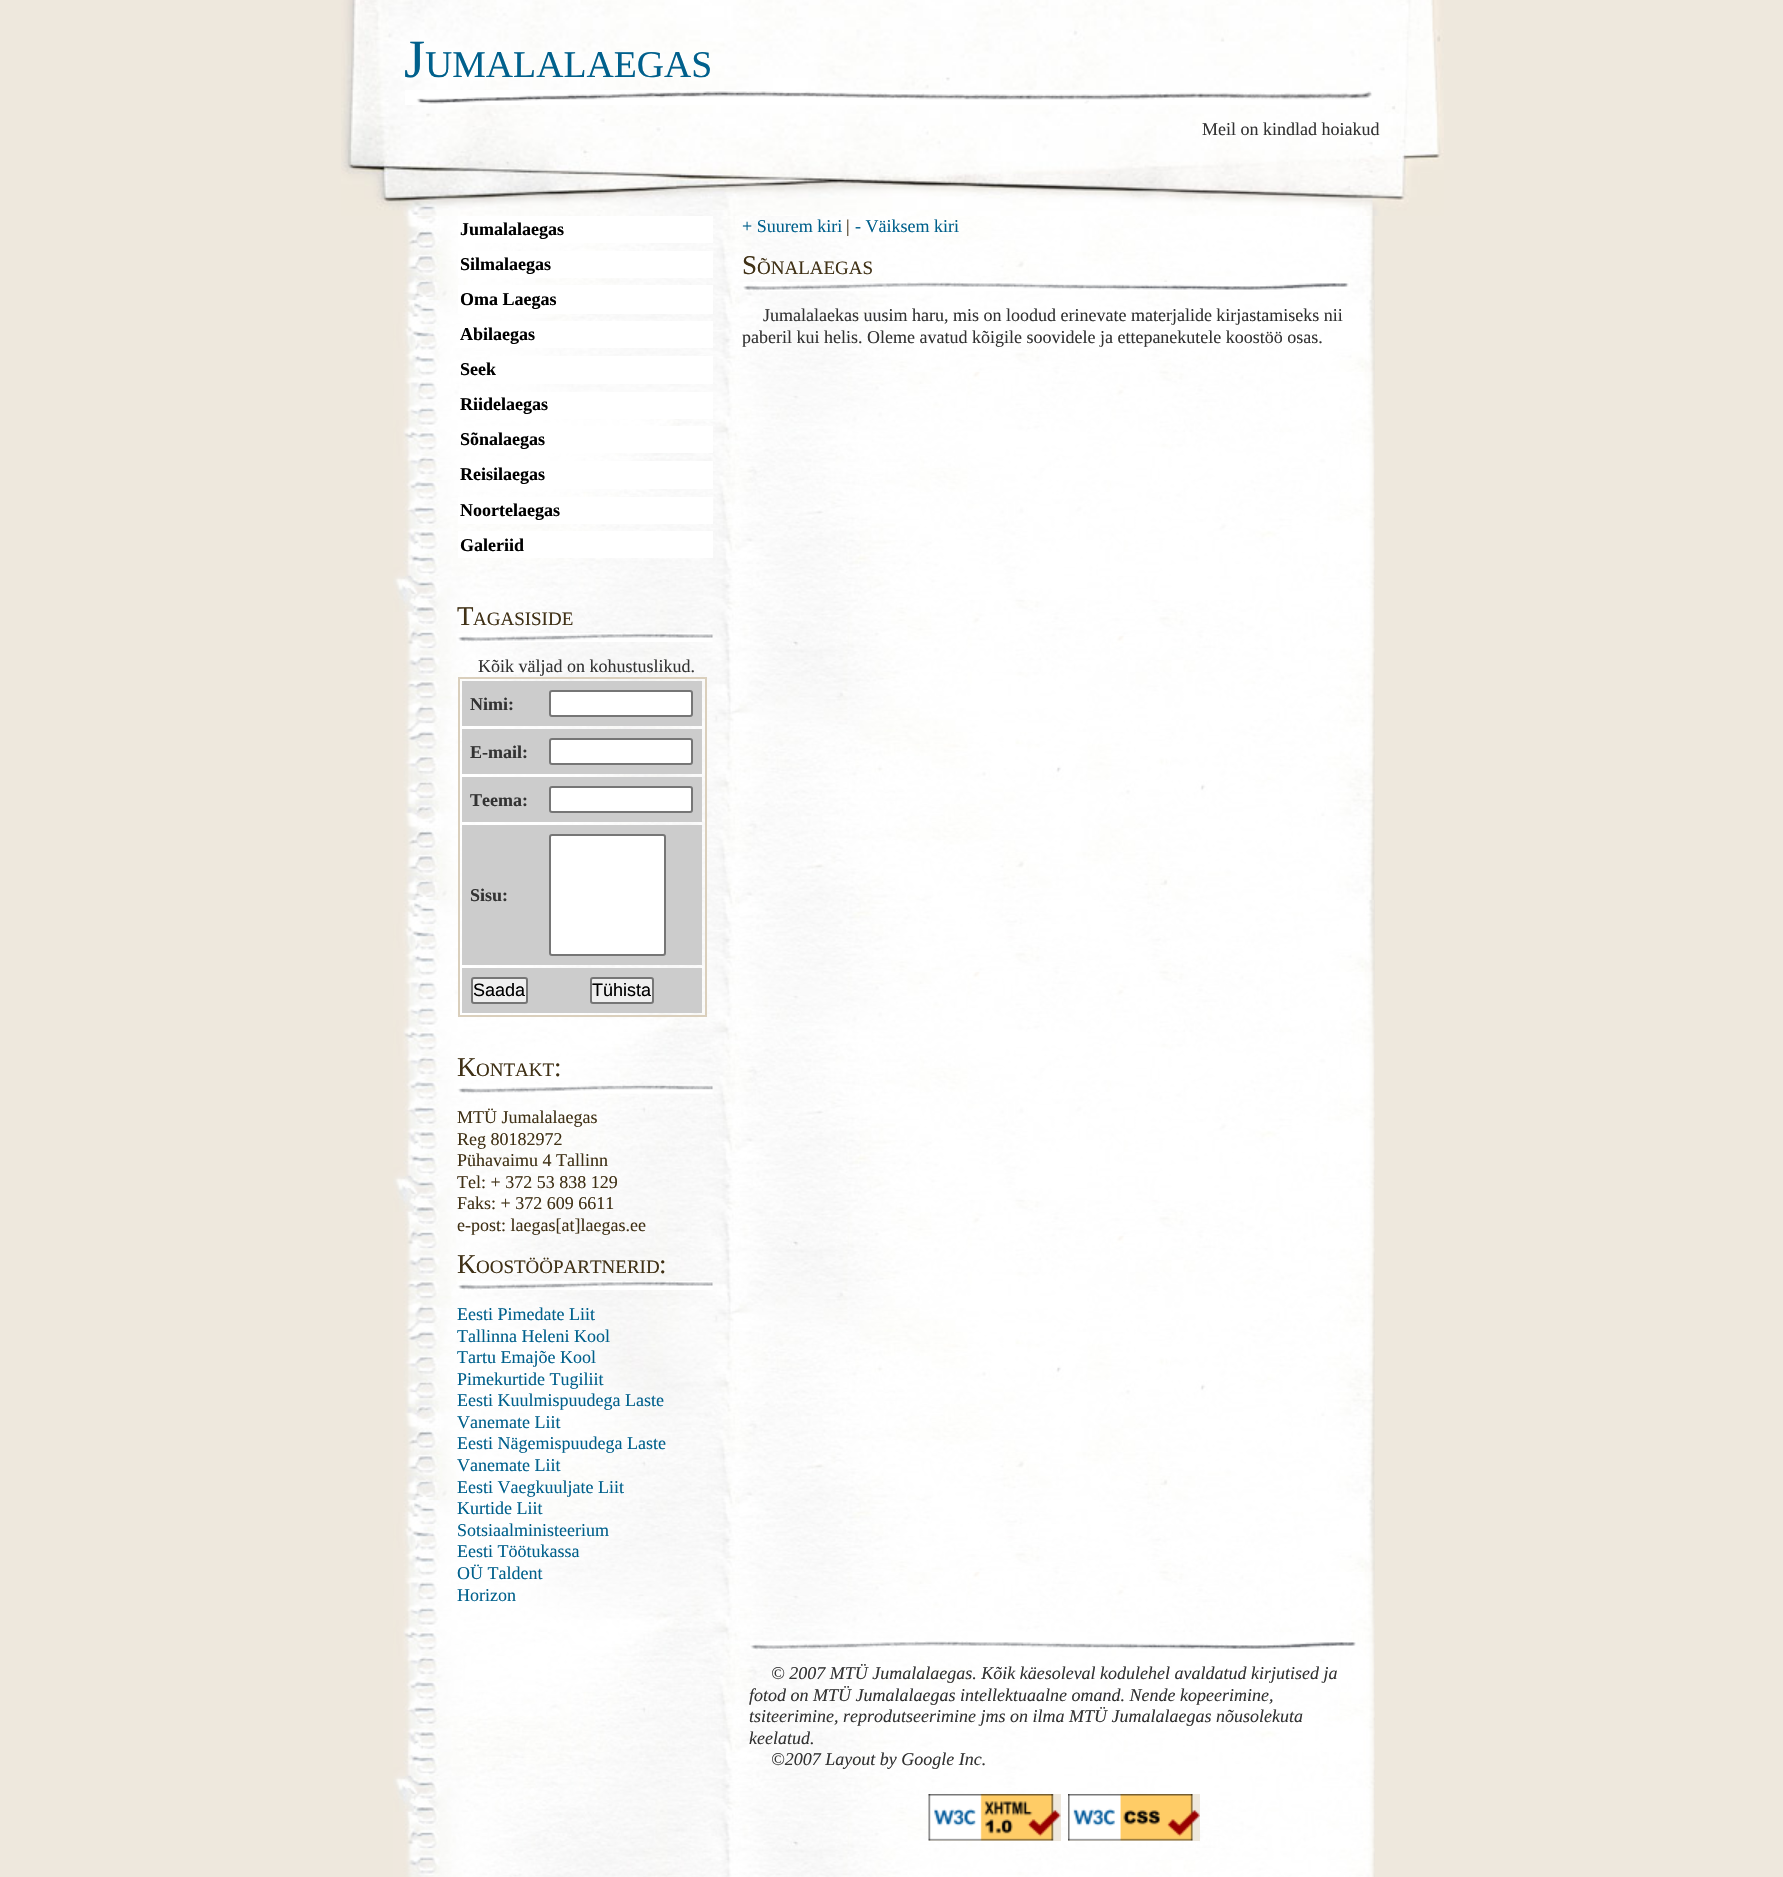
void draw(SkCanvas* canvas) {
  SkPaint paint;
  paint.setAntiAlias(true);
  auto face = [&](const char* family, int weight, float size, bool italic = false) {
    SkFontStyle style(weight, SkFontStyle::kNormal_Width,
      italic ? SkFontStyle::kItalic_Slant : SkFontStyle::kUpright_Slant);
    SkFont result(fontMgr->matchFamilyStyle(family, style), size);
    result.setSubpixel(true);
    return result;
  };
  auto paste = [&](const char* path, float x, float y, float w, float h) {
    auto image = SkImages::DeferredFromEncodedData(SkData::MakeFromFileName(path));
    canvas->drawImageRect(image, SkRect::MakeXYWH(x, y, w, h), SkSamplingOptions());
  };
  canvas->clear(0xffeee8dd);
  paste("img/1.png", 393, 216, 982, 1661);
  paste("img/2.png", 341, 0, 1103, 216);
  paste("img/3.png", 405, 90, 967, 15);
  {
    const struct { float x, y, w, h; SkColor color; } items[] = {
      {458, 216, 255, 27, 0xffffffff},
      {458, 251, 255, 27, 0xffffffff},
      {458, 285, 255, 29, 0xffffffff},
      {462, 321, 251, 27, 0xffffffff},
      {490, 356, 223, 28, 0xffffffff},
      {476, 392, 237, 27, 0xffffffff},
      {474, 426, 239, 27, 0xffffffff},
      {476, 461, 237, 28, 0xffffffff},
      {458, 497, 255, 27, 0xffffffff},
      {458, 531, 255, 27, 0xffffffff},
    };
    for (auto [x, y, w, h, color] : items) {
      paint.setColor(color);
      canvas->drawRect(SkRect::MakeXYWH(x, y, w, h), paint);
    }
  }
  paste("img/4.png", 457, 633, 256, 9);
  paint.setStroke(true);
  paint.setStrokeWidth(2);
  paint.setColor(0xffdacfbc);
  canvas->drawRect(SkRect::MakeXYWH(459, 678, 247, 338), paint);
  paint.setStroke(false);
  paint.setColor(0xffcccccc);
  canvas->drawRect(SkRect::MakeXYWH(462, 681, 240, 45), paint);
  paint.setColor(0xffffffff);
  canvas->drawRoundRect(SkRect::MakeXYWH(550, 691, 142, 25), 2, 2, paint);
  paint.setStroke(true);
  paint.setColor(0xff767676);
  canvas->drawRoundRect(SkRect::MakeXYWH(550, 691, 142, 25), 2, 2, paint);
  paint.setStroke(false);
  paint.setColor(0xffcccccc);
  canvas->drawRect(SkRect::MakeXYWH(462, 729, 240, 45), paint);
  paint.setColor(0xffffffff);
  canvas->drawRoundRect(SkRect::MakeXYWH(550, 739, 142, 25), 2, 2, paint);
  paint.setStroke(true);
  paint.setColor(0xff767676);
  canvas->drawRoundRect(SkRect::MakeXYWH(550, 739, 142, 25), 2, 2, paint);
  paint.setStroke(false);
  paint.setColor(0xffcccccc);
  canvas->drawRect(SkRect::MakeXYWH(462, 777, 240, 45), paint);
  paint.setColor(0xffffffff);
  canvas->drawRoundRect(SkRect::MakeXYWH(550, 787, 142, 25), 2, 2, paint);
  paint.setStroke(true);
  paint.setColor(0xff767676);
  canvas->drawRoundRect(SkRect::MakeXYWH(550, 787, 142, 25), 2, 2, paint);
  paint.setStroke(false);
  paint.setColor(0xffcccccc);
  canvas->drawRect(SkRect::MakeXYWH(462, 825, 240, 140), paint);
  paint.setColor(0xffffffff);
  canvas->drawRoundRect(SkRect::MakeXYWH(550, 835, 115, 120), 2, 2, paint);
  paint.setStroke(true);
  paint.setColor(0xff767676);
  canvas->drawRoundRect(SkRect::MakeXYWH(550, 835, 115, 120), 2, 2, paint);
  paint.setStroke(false);
  paint.setColor(0xffcccccc);
  canvas->drawRect(SkRect::MakeXYWH(462, 968, 240, 45), paint);
  paint.setColor(0xffefefef);
  canvas->drawRoundRect(SkRect::MakeXYWH(472, 978, 55, 25), 2, 2, paint);
  paint.setStroke(true);
  paint.setColor(0xff767676);
  canvas->drawRoundRect(SkRect::MakeXYWH(472, 978, 55, 25), 2, 2, paint);
  paint.setStroke(false);
  paint.setColor(0xffefefef);
  canvas->drawRoundRect(SkRect::MakeXYWH(591, 978, 62, 25), 2, 2, paint);
  paint.setStroke(true);
  paint.setColor(0xff767676);
  canvas->drawRoundRect(SkRect::MakeXYWH(591, 978, 62, 25), 2, 2, paint);
  paste("img/5.png", 457, 1084, 256, 10);
  paste("img/6.png", 457, 1281, 256, 9);
  paste("img/7.png", 743, 282, 607, 9);
  paste("img/8.png", 750, 1641, 606, 9);
  paint.setStroke(false);
  paint.setColor(0xffeee8dd);
  canvas->drawRect(SkRect::MakeXYWH(929, 1794, 132, 47), paint);
  paste("img/9.png", 928, 1794, 133, 47);
  canvas->drawRect(SkRect::MakeXYWH(1068, 1794, 132, 47), paint);
  paste("img/10.png", 1068, 1794, 132, 47);
  auto f0 = face("Liberation Serif", 400, 54);
  paint.setColor(0xff00608c);
  canvas->drawString("J", 404, 77, f0, paint);
  auto f1 = face("Liberation Serif", 400, 37.75f);
  canvas->drawString("UMALALAEGAS", 425, 77, f1, paint);
  auto f2 = face("Liberation Serif", 400, 18);
  paint.setColor(0xff333333);
  canvas->drawString("Meil on kindlad hoiakud", 1202, 135, f2, paint);
  auto f3 = face("Liberation Serif", 700, 18);
  paint.setColor(0xff000000);
  {
    const struct { const char* s; float x, y; } items[] = {
      {"Jumalalaegas", 460, 235},
      {"Silmalaegas", 460, 270},
      {"Oma Laegas", 460, 305},
      {"Abilaegas", 460, 340},
      {"Seek", 460, 375},
      {"Riidelaegas", 460, 410},
      {"Sõnalaegas", 460, 445},
      {"Reisilaegas", 460, 480},
      {"Noortelaegas", 460, 516},
      {"Galeriid", 460, 551},
    };
    for (auto [s, x, y] : items) {
      canvas->drawString(s, x, y, f3, paint);
    }
  }
  auto f4 = face("Liberation Serif", 400, 27);
  paint.setColor(0xff403116);
  canvas->drawString("T", 457, 625, f4, paint);
  auto f5 = face("Liberation Serif", 400, 19);
  canvas->drawString("AGASISIDE", 473, 625, f5, paint);
  paint.setColor(0xff333333);
  canvas->drawString("Kõik väljad on kohustuslikud.", 478, 672, f2, paint);
  {
    const struct { const char* s; float x, y; } items[] = {
      {"Nimi:", 470, 710},
      {"E-mail:", 470, 758},
      {"Teema:", 470, 806},
      {"Sisu:", 470, 901},
    };
    for (auto [s, x, y] : items) {
      canvas->drawString(s, x, y, f3, paint);
    }
  }
  auto f6 = face("Liberation Sans", 400, 18);
  paint.setColor(0xff000000);
  canvas->drawString("Saada", 473, 996, f6, paint);
  canvas->drawString("Tühista", 592, 996, f6, paint);
  paint.setColor(0xff403116);
  canvas->drawString("K", 457, 1076, f4, paint);
  canvas->drawString("ONTAKT", 476, 1076, f5, paint);
  canvas->drawString(":", 554, 1076, f4, paint);
  {
    const struct { const char* s; float x, y; } items[] = {
      {"MTÜ Jumalalaegas", 457, 1123},
      {"Reg 80182972", 457, 1145},
      {"Pühavaimu 4 Tallinn", 457, 1166},
      {"Tel: + 372 53 838 129", 457, 1188},
      {"Faks: + 372 609 6611", 457, 1209},
      {"e-post: laegas[at]laegas.ee", 457, 1231},
    };
    for (auto [s, x, y] : items) {
      canvas->drawString(s, x, y, f2, paint);
    }
  }
  canvas->drawString("K", 457, 1273, f4, paint);
  canvas->drawString("OOSTÖÖPARTNERID", 476, 1273, f5, paint);
  canvas->drawString(":", 659, 1273, f4, paint);
  paint.setColor(0xff00608c);
  {
    const struct { const char* s; float x, y; } items[] = {
      {"Eesti Pimedate Liit", 457, 1320},
      {"Tallinna Heleni Kool", 457, 1342},
      {"Tartu Emajõe Kool", 457, 1363},
      {"Pimekurtide Tugiliit", 457, 1385},
      {"Eesti Kuulmispuudega Laste", 457, 1406},
      {"Vanemate Liit", 457, 1428},
      {"Eesti Nägemispuudega Laste", 457, 1449},
      {"Vanemate Liit", 457, 1471},
      {"Eesti Vaegkuuljate Liit", 457, 1493},
      {"Kurtide Liit", 457, 1514},
      {"Sotsiaalministeerium", 457, 1536},
      {"Eesti Töötukassa", 457, 1557},
      {"OÜ Taldent", 457, 1579},
      {"Horizon", 457, 1601},
      {"+ Suurem kiri", 742, 232},
    };
    for (auto [s, x, y] : items) {
      canvas->drawString(s, x, y, f2, paint);
    }
  }
  paint.setColor(0xff403116);
  canvas->drawString("|", 846, 232, f2, paint);
  paint.setColor(0xff00608c);
  canvas->drawString("- Väiksem kiri", 855, 232, f2, paint);
  paint.setColor(0xff403116);
  canvas->drawString("S", 742, 274, f4, paint);
  canvas->drawString("ÕNALAEGAS", 757, 274, f5, paint);
  paint.setColor(0xff333333);
  canvas->drawString("Jumalalaekas uusim haru, mis on loodud erinevate materjalide kirjastamiseks nii", 763, 321, f2, paint);
  canvas->drawString("paberil kui helis. Oleme avatud kõigile soovidele ja ettepanekutele koostöö osas.", 742, 343, f2, paint);
  auto f7 = face("Liberation Serif", 400, 18, true);
  {
    const struct { const char* s; float x, y; } items[] = {
      {"© 2007 MTÜ Jumalalaegas. Kõik käesoleval kodulehel avaldatud kirjutised ja", 771, 1679},
      {"fotod on MTÜ Jumalalaegas intellektuaalne omand. Nende kopeerimine,", 749, 1701},
      {"tsiteerimine, reprodutseerimine jms on ilma MTÜ Jumalalaegas nõusolekuta", 749, 1722},
      {"keelatud.", 749, 1744},
      {"©2007 Layout by Google Inc.", 771, 1765},
    };
    for (auto [s, x, y] : items) {
      canvas->drawString(s, x, y, f7, paint);
    }
  }
}
